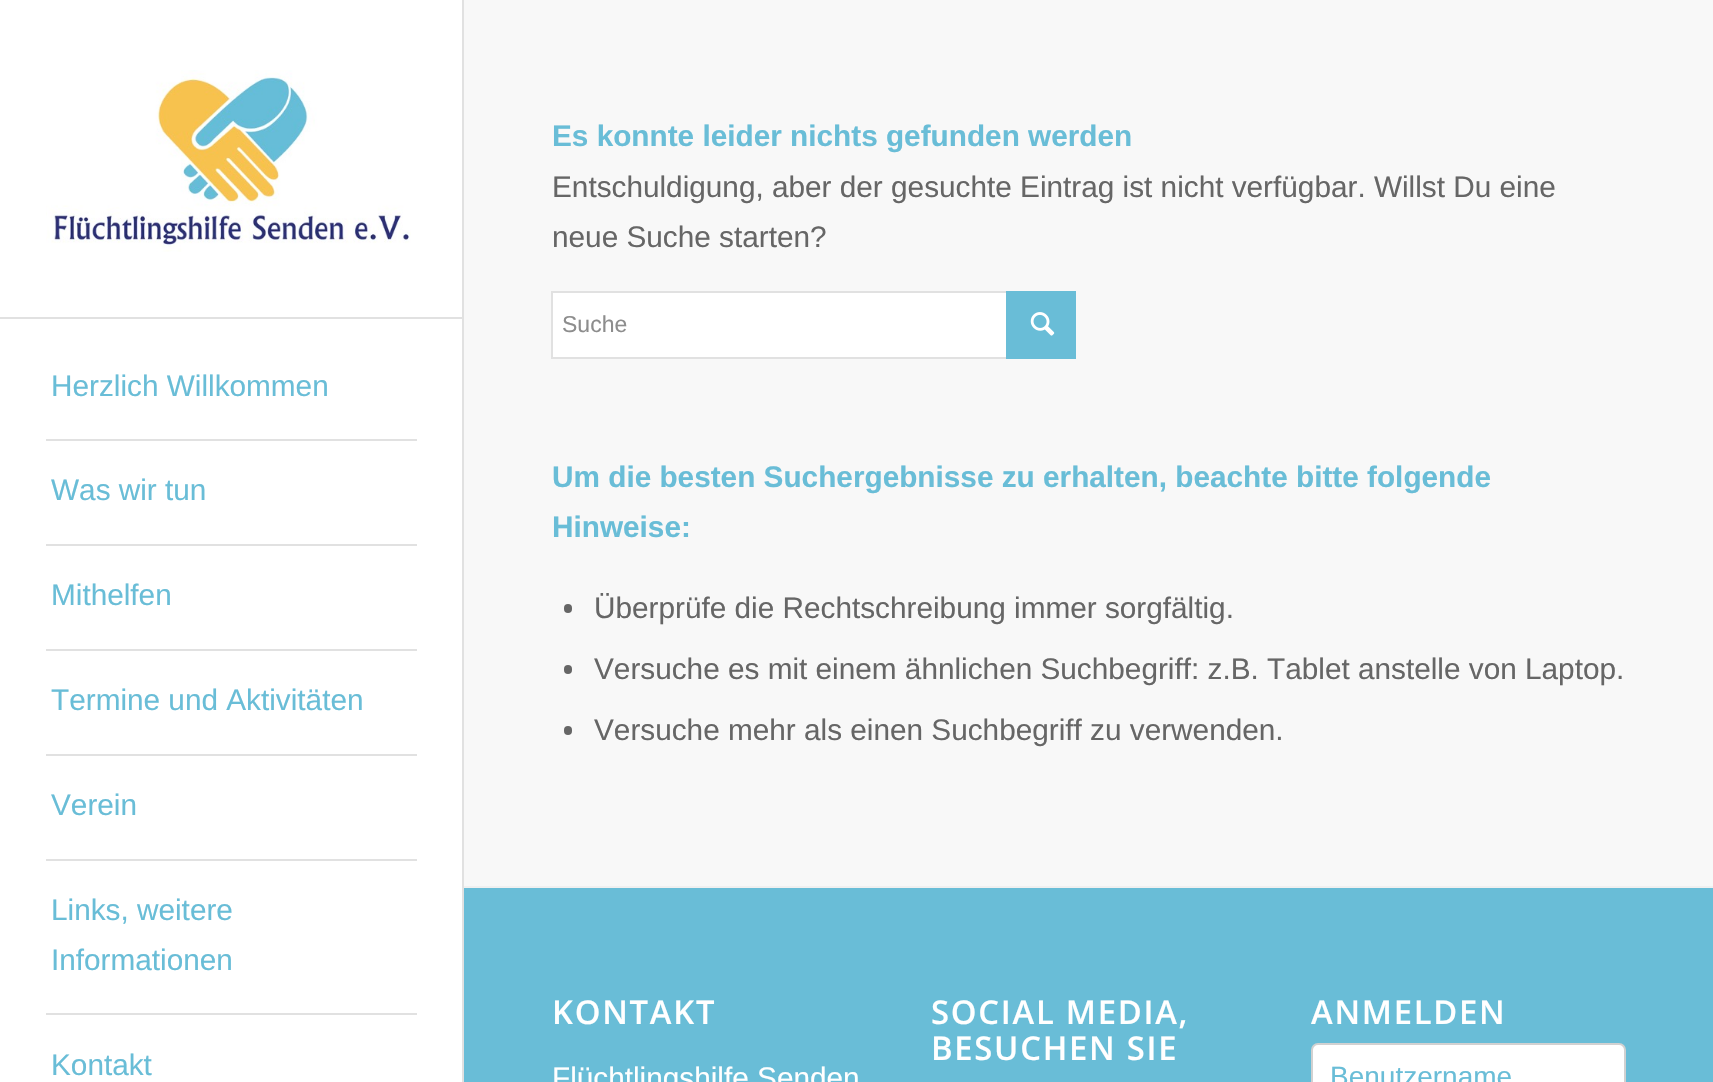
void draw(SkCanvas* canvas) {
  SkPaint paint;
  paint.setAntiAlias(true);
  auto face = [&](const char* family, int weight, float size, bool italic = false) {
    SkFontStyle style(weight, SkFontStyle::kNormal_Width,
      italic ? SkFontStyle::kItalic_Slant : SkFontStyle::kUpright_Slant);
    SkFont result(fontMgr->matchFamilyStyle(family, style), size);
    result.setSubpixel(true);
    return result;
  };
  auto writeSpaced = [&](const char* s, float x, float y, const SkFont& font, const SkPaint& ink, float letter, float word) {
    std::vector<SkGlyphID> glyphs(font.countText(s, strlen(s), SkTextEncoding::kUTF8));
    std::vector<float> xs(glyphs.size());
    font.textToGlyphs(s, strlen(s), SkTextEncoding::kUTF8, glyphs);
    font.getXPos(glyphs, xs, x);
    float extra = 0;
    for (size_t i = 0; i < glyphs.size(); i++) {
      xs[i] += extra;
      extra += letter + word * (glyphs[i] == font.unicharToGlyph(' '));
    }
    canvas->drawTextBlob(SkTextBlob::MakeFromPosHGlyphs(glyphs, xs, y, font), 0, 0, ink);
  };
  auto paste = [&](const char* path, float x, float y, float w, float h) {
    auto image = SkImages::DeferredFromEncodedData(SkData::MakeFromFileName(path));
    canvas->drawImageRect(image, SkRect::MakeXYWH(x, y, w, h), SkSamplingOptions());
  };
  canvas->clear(0xffffffff);
  paint.setColor(0xffe1e1e1);
  canvas->drawRect(SkRect::MakeXYWH(0, 317, 462, 2), paint);
  paste("img/1.png", 46, 70, 365, 182);
  {
    const struct { float x, y, w, h; SkColor color; } items[] = {
      {46, 439, 371, 2, 0xffe1e1e1},
      {46, 544, 371, 2, 0xffe1e1e1},
      {46, 649, 371, 2, 0xffe1e1e1},
      {46, 754, 371, 2, 0xffe1e1e1},
      {46, 859, 371, 2, 0xffe1e1e1},
      {46, 1013, 371, 2, 0xffe1e1e1},
      {462, 0, 2, 1082, 0xffe1e1e1},
      {464, 0, 1249, 886, 0xfff8f8f8},
      {553, 293, 453, 64, 0xffffffff},
    };
    for (auto [x, y, w, h, color] : items) {
      paint.setColor(color);
      canvas->drawRect(SkRect::MakeXYWH(x, y, w, h), paint);
    }
  }
  paint.setStroke(true);
  paint.setStrokeWidth(2);
  paint.setColor(0xffe1e1e1);
  canvas->drawRect(SkRect::MakeXYWH(552, 292, 523, 66), paint);
  paint.setStroke(false);
  paint.setColor(0xff69bdd7);
  canvas->drawRect(SkRect::MakeXYWH(1006, 291, 70, 68), paint);
  paste("img/2.png", 1030, 312, 25, 24);
  paint.setColor(0xff666666);
  canvas->drawRoundRect(SkRect::MakeXYWH(564, 604, 8, 9), 4, 4, paint);
  canvas->drawRoundRect(SkRect::MakeXYWH(564, 665, 8, 9), 4, 4, paint);
  canvas->drawRoundRect(SkRect::MakeXYWH(564, 726, 8, 9), 4, 4, paint);
  paint.setColor(0xff69bdd7);
  canvas->drawRect(SkRect::MakeXYWH(464, 888, 1249, 194), paint);
  paint.setColor(0xfff0f0f0);
  canvas->drawRect(SkRect::MakeXYWH(464, 886, 1249, 2), paint);
  paint.setColor(0xffffffff);
  canvas->drawRoundRect(SkRect::MakeXYWH(1312, 1044, 313, 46), 6, 6, paint);
  paint.setStroke(true);
  paint.setColor(0xffd1d1d1);
  canvas->drawRoundRect(SkRect::MakeXYWH(1312, 1044, 313, 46), 6, 6, paint);
  auto f0 = face("Liberation Sans", 400, 29.75f);
  paint.setStroke(false);
  paint.setColor(0xff69bdd7);
  {
    const struct { const char* s; float x, y; } items[] = {
      {"Herzlich Willkommen", 51, 396},
      {"Was wir tun", 51, 500},
      {"Mithelfen", 51, 605},
      {"Termine und Aktivitäten", 51, 710},
      {"Verein", 51, 815},
      {"Links, weitere", 51, 920},
      {"Informationen", 51, 970},
      {"Kontakt", 51, 1075},
    };
    for (auto [s, x, y] : items) {
      canvas->drawString(s, x, y, f0, paint);
    }
  }
  auto f1 = face("Liberation Sans", 700, 29.75f);
  canvas->drawString("Es konnte leider nichts gefunden werden", 552, 146, f1, paint);
  paint.setColor(0xff666666);
  canvas->drawString("Entschuldigung, aber der gesuchte Eintrag ist nicht verfügbar. Willst Du eine", 552, 197, f0, paint);
  canvas->drawString("neue Suche starten?", 552, 247, f0, paint);
  auto f2 = face("Liberation Sans", 400, 23);
  paint.setColor(0xff8d8d8d);
  canvas->drawString("Suche", 562, 332, f2, paint);
  paint.setColor(0xff69bdd7);
  canvas->drawString("Um die besten Suchergebnisse zu erhalten, beachte bitte folgende", 552, 487, f1, paint);
  canvas->drawString("Hinweise:", 552, 537, f1, paint);
  paint.setColor(0xff666666);
  {
    const struct { const char* s; float x, y; } items[] = {
      {"Überprüfe die Rechtschreibung immer sorgfältig.", 594, 618},
      {"Versuche es mit einem ähnlichen Suchbegriff: z.B. Tablet anstelle von Laptop.", 594, 679},
      {"Versuche mehr als einen Suchbegriff zu verwenden.", 594, 740},
    };
    for (auto [s, x, y] : items) {
      canvas->drawString(s, x, y, f0, paint);
    }
  }
  auto f3 = face("Open Sans", 600, 32.75f);
  paint.setColor(0xffffffff);
  writeSpaced("KONTAKT", 552, 1024, f3, paint, 1.75f, 0);
  canvas->drawString("Flüchtlingshilfe Senden", 552, 1088, f0, paint);
  {
    const struct { const char* s; float x, y; } items[] = {
      {"SOCIAL MEDIA,", 931, 1024},
      {"BESUCHEN SIE", 931, 1060},
      {"ANMELDEN", 1311, 1024},
    };
    for (auto [s, x, y] : items) {
      writeSpaced(s, x, y, f3, paint, 1.75f, 0);
    }
  }
  auto f4 = face("Liberation Sans", 400, 28);
  paint.setColor(0xff69bdd7);
  canvas->drawString("Benutzername", 1330, 1086, f4, paint);
}
